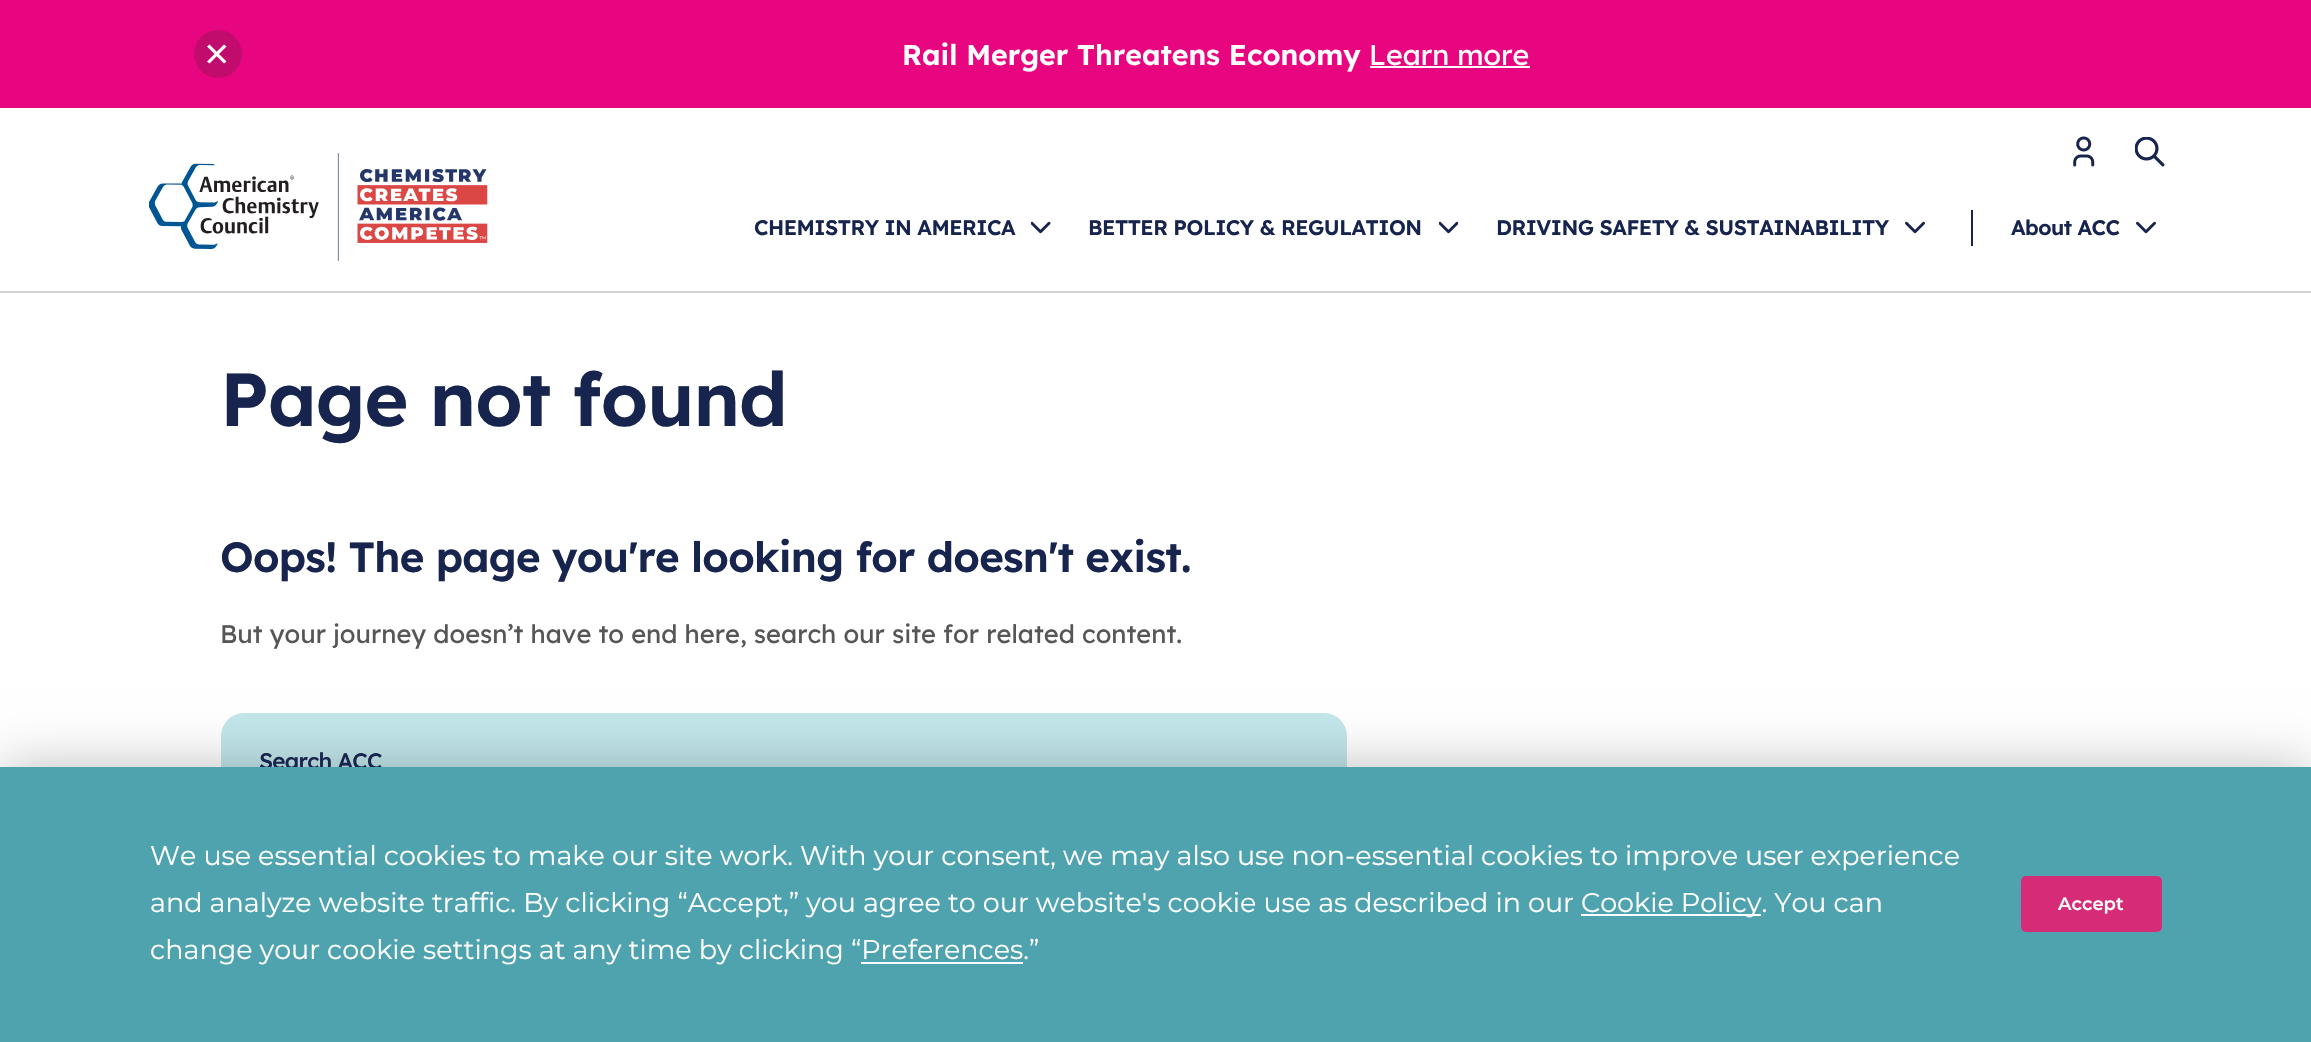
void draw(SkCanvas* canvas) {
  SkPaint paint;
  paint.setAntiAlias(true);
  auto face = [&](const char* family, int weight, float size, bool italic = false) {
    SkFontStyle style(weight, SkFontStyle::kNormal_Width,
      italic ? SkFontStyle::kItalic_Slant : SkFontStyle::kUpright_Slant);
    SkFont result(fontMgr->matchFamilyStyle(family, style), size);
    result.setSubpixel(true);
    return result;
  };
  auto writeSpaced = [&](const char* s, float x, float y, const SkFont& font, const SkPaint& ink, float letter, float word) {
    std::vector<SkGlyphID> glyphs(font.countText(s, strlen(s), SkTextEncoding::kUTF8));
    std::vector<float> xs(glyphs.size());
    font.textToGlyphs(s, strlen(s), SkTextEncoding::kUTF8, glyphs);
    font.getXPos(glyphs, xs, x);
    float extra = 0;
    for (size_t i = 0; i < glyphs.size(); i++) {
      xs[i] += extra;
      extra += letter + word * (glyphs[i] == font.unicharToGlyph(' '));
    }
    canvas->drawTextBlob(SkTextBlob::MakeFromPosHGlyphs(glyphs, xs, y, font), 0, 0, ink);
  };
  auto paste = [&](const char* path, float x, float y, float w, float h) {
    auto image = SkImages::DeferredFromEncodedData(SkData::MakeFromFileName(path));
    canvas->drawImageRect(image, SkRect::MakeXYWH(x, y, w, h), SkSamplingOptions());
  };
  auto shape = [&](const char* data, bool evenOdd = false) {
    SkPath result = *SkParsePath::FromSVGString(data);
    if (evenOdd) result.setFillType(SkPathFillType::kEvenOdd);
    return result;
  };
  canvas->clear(0xffffffff);
  paint.setColor(0xffe80680);
  canvas->drawRect(SkRect::MakeXYWH(0, 0, 2311, 108), paint);
  paint.setColor(0xffc10b6d);
  canvas->drawCircle(218, 54, 24, paint);
  paint.setColor(0xffffffff);
  canvas->drawPath(shape("M209.5 44.5L226.5 61.5L224 63.5L207 46.5Z"), paint);
  canvas->drawPath(shape("M224 44.5L226.5 46.5L209.5 63.5L207 61.5Z"), paint);
  canvas->drawRect(SkRect::MakeXYWH(1370, 66, 160, 2), paint);
  paint.setColor(0xffd1d1d1);
  canvas->drawRect(SkRect::MakeXYWH(0, 291, 2311, 2), paint);
  paste("img/1.png", 149, 153, 339, 108);
  paste("img/2.png", 2073, 136, 22, 31);
  paste("img/3.png", 2135, 137, 30, 30);
  paste("img/4.png", 1031, 221, 20, 13);
  paste("img/5.png", 1439, 221, 19, 13);
  paste("img/6.png", 1905, 221, 20, 13);
  paint.setColor(0xff17244d);
  canvas->drawRect(SkRect::MakeXYWH(1971, 210, 2, 36), paint);
  paste("img/6.png", 2136, 221, 20, 13);
  paint.setColor(0xffc2e6ea);
  canvas->drawRoundRect(SkRect::MakeXYWH(221, 713, 1126, 184), 23, 23, paint);
  paint.setColor(0x40000000);
  paint.setMaskFilter(SkMaskFilter::MakeBlur(kNormal_SkBlurStyle, 26));
  canvas->drawRect(SkRect::MakeXYWH(0, 767, 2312, 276), paint);
  paint.setMaskFilter(nullptr);
  auto f0 = face("Lexend", 600, 28.5f);
  paint.setColor(0xffffffff);
  canvas->drawString("Rail Merger Threatens Economy", 902, 65, f0, paint);
  auto f1 = face("Lexend", 400, 28.5f);
  canvas->drawString("Learn more", 1369, 65, f1, paint);
  auto f2 = face("Lexend", 600, 21);
  paint.setColor(0xff17244d);
  {
    const struct { const char* s; float x, y; } items[] = {
      {"CHEMISTRY IN AMERICA", 754, 235},
      {"BETTER POLICY & REGULATION", 1088, 235},
      {"DRIVING SAFETY & SUSTAINABILITY", 1496, 235},
      {"About ACC", 2011, 235},
    };
    for (auto [s, x, y] : items) {
      writeSpaced(s, x, y, f2, paint, -0.5f, 0);
    }
  }
  auto f3 = face("Lexend", 600, 75);
  writeSpaced("Page not found", 220, 426, f3, paint, -1, 0);
  auto f4 = face("Lexend", 600, 42);
  writeSpaced("Oops! The page you're looking for doesn't exist.", 220, 572, f4, paint, -0.75f, 0);
  auto f5 = face("Lexend", 400, 25.5f);
  paint.setColor(0xff565656);
  canvas->drawString("But your journey doesn’t have to end here, search our site for related content.", 220, 643, f5, paint);
  auto f6 = face("Lexend", 500, 22.5f);
  paint.setColor(0xff17244d);
  writeSpaced("Search ACC", 259, 769, f6, paint, -0.75f, 0);
  paint.setColor(0xff4fa3ae);
  canvas->drawRect(SkRect::MakeXYWH(0, 767, 2311, 275), paint);
  auto f7 = face("Montserrat", 400, 27);
  paint.setColor(0xffffffff);
  canvas->drawString("We use essential cookies to make our site work. With your consent, we may also use non-essential cookies to improve user experience", 150, 865, f7, paint);
  canvas->drawString("and analyze website traffic. By clicking “Accept,” you agree to our website's cookie use as described in our", 150, 912, f7, paint);
  canvas->drawRect(SkRect::MakeXYWH(1581, 914, 180, 2), paint);
  canvas->drawString("Cookie Policy. You can", 1581, 912, f7, paint);
  canvas->drawString("change your cookie settings at any time by clicking “Preferences.”", 150, 959, f7, paint);
  canvas->drawRect(SkRect::MakeXYWH(861, 962, 162, 2), paint);
  paint.setColor(0xffd62c77);
  canvas->drawRoundRect(SkRect::MakeXYWH(2022, 877, 139, 54), 4, 4, paint);
  paint.setStroke(true);
  paint.setStrokeWidth(2);
  canvas->drawRoundRect(SkRect::MakeXYWH(2022, 877, 139, 54), 4, 4, paint);
  auto f8 = face("Montserrat", 600, 18);
  paint.setStroke(false);
  paint.setColor(0xffffffff);
  canvas->drawString("Accept", 2058, 910, f8, paint);
}
